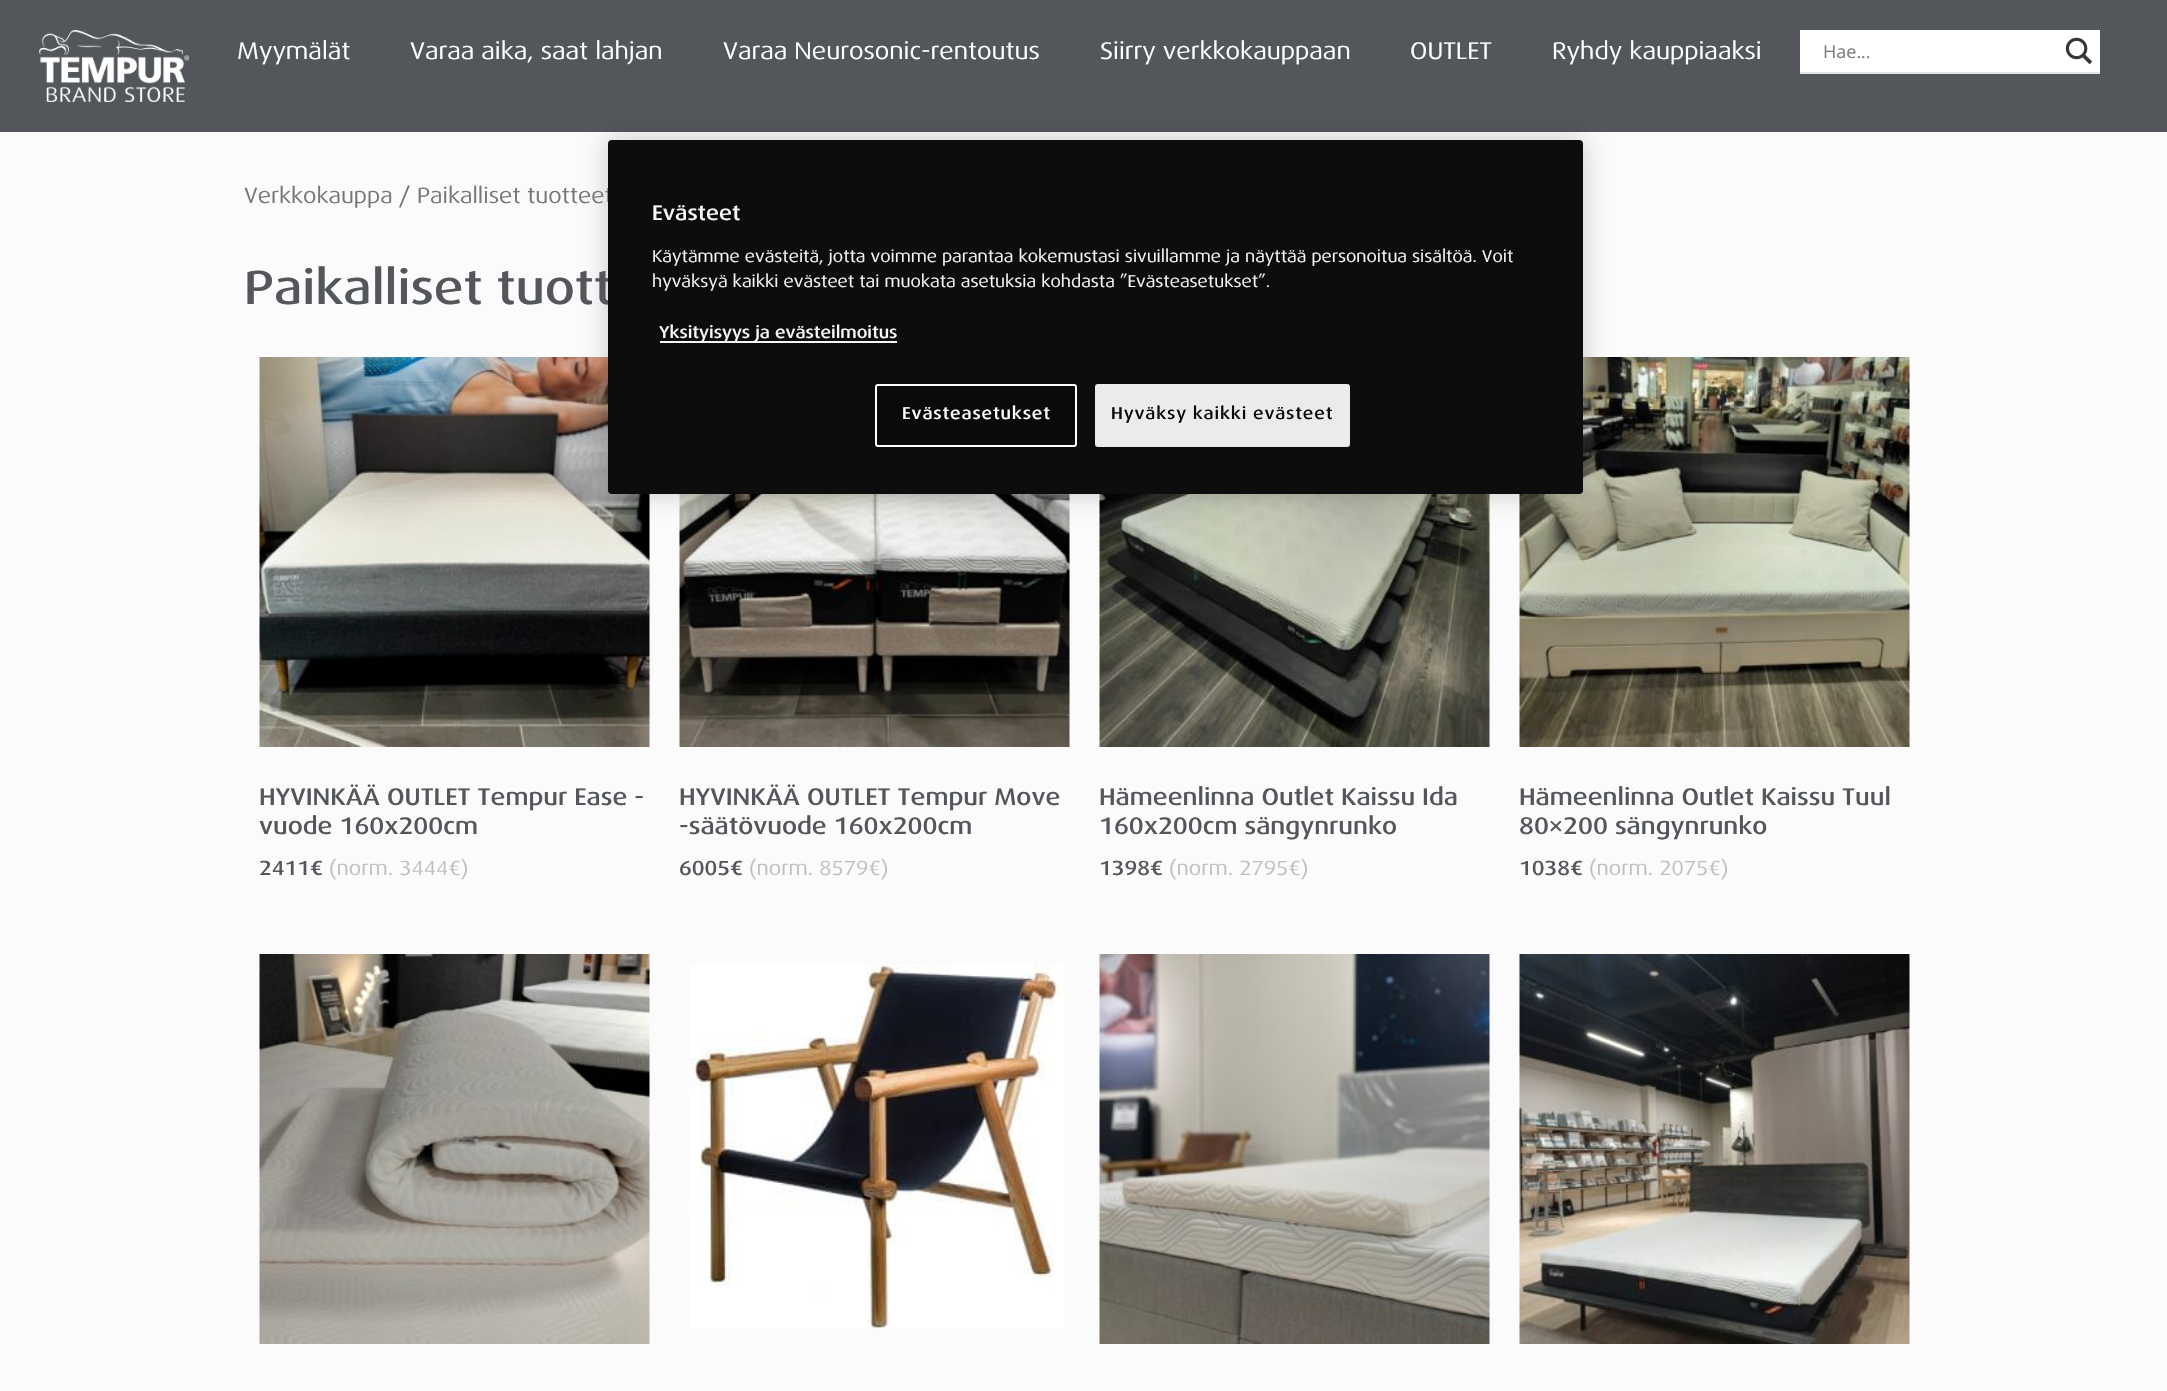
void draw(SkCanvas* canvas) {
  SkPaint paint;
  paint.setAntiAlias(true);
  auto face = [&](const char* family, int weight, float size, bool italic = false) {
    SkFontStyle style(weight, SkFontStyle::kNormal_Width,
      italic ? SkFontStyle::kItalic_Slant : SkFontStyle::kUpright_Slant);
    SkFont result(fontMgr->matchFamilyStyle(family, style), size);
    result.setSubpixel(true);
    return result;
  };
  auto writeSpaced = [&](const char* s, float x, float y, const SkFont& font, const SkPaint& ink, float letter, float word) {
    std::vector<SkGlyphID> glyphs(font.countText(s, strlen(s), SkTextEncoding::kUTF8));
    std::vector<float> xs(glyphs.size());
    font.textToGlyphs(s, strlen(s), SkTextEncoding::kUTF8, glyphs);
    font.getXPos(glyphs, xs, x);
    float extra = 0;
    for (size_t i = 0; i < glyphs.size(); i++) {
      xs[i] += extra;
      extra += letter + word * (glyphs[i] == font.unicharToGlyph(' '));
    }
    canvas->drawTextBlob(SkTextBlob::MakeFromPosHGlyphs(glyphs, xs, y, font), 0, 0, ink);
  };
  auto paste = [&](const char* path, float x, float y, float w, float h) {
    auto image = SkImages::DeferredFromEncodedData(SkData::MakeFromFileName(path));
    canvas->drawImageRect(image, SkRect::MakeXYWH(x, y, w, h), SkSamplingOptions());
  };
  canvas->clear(0xfffbfbfb);
  paint.setColor(0xff53565a);
  canvas->drawRect(SkRect::MakeXYWH(0, 0, 2167, 132), paint);
  paste("img/1.png", 39, 30, 150, 72);
  paint.setColor(0xffe4e4e4);
  canvas->drawRect(SkRect::MakeXYWH(1800, 72, 300, 2), paint);
  paint.setColor(0xffffffff);
  canvas->drawRect(SkRect::MakeXYWH(1800, 30, 300, 42), paint);
  paste("img/2.png", 2065, 37, 28, 28);
  paste("img/3.png", 259, 357, 391, 390);
  paste("img/4.png", 679, 494, 391, 253);
  paste("img/5.png", 1099, 494, 391, 253);
  paste("img/6.png", 1519, 357, 391, 390);
  paste("img/7.png", 259, 954, 391, 390);
  paste("img/8.png", 689, 964, 375, 365);
  paste("img/9.png", 1099, 954, 391, 390);
  paste("img/10.png", 1519, 954, 391, 390);
  paint.setColor(0x33000000);
  paint.setMaskFilter(SkMaskFilter::MakeBlur(kNormal_SkBlurStyle, 13.5f));
  canvas->drawRoundRect(SkRect::MakeXYWH(608, 140, 975, 354), 4, 4, paint);
  paint.setMaskFilter(nullptr);
  auto f0 = face("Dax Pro", 400, 24);
  paint.setColor(0xffffffff);
  {
    const struct { const char* s; float x, y; } items[] = {
      {"Myymälät", 237, 59},
      {"Varaa aika, saat lahjan", 410, 59},
      {"Varaa Neurosonic-rentoutus", 723, 59},
      {"Siirry verkkokauppaan", 1100, 59},
      {"OUTLET", 1410, 59},
      {"Ryhdy kauppiaaksi", 1552, 59},
    };
    for (auto [s, x, y] : items) {
      canvas->drawString(s, x, y, f0, paint);
    }
  }
  auto f1 = face("Open Sans", 400, 18);
  paint.setColor(0xff7d7d7d);
  canvas->drawString("Hae...", 1823, 58, f1, paint);
  auto f2 = face("Dax Pro", 400, 22.1f);
  paint.setColor(0xff767676);
  canvas->drawString("Verkkokauppa / Paikalliset tuotteet", 244, 203, f2, paint);
  auto f3 = face("Dax Pro", 500, 48);
  paint.setColor(0xff53565a);
  canvas->drawString("Paikalliset tuott", 244, 304, f3, paint);
  auto f4 = face("Dax Pro", 500, 24);
  canvas->drawString("HYVINKÄÄ OUTLET Tempur Ease -", 259, 805, f4, paint);
  canvas->drawString("vuode 160x200cm", 259, 834, f4, paint);
  auto f5 = face("Dax Pro", 500, 20.5f);
  canvas->drawString("2411€", 259, 875, f5, paint);
  auto f6 = face("Dax Pro", 400, 20.5f);
  paint.setColor(0xffbfbfbf);
  canvas->drawString("(norm. 3444€)", 329, 875, f6, paint);
  paint.setColor(0xff53565a);
  canvas->drawString("HYVINKÄÄ OUTLET Tempur Move", 679, 805, f4, paint);
  canvas->drawString("-säätövuode 160x200cm", 679, 834, f4, paint);
  canvas->drawString("6005€", 679, 875, f5, paint);
  paint.setColor(0xffbfbfbf);
  canvas->drawString("(norm. 8579€)", 749, 875, f6, paint);
  paint.setColor(0xff53565a);
  canvas->drawString("Hämeenlinna Outlet Kaissu Ida", 1099, 805, f4, paint);
  canvas->drawString("160x200cm sängynrunko", 1099, 834, f4, paint);
  canvas->drawString("1398€", 1099, 875, f5, paint);
  paint.setColor(0xffbfbfbf);
  canvas->drawString("(norm. 2795€)", 1169, 875, f6, paint);
  paint.setColor(0xff53565a);
  canvas->drawString("Hämeenlinna Outlet Kaissu Tuul", 1519, 805, f4, paint);
  canvas->drawString("80×200 sängynrunko", 1519, 834, f4, paint);
  canvas->drawString("1038€", 1519, 875, f5, paint);
  paint.setColor(0xffbfbfbf);
  canvas->drawString("(norm. 2075€)", 1589, 875, f6, paint);
  paint.setColor(0xff0d0d0d);
  canvas->drawRoundRect(SkRect::MakeXYWH(608, 140, 975, 354), 4, 4, paint);
  auto f7 = face("Dax Pro", 500, 21);
  paint.setColor(0xfff8f8f8);
  canvas->drawString("Evästeet", 652, 220, f7, paint);
  auto f8 = face("Dax Pro", 400, 17.07f);
  canvas->drawString("Käytämme evästeitä, jotta voimme parantaa kokemustasi sivuillamme ja näyttää personoitua sisältöä. Voit", 652, 262, f8, paint);
  canvas->drawString("hyväksyä kaikki evästeet tai muokata asetuksia kohdasta ”Evästeasetukset”.", 652, 287, f8, paint);
  paint.setColor(0xfff7f7f7);
  canvas->drawRect(SkRect::MakeXYWH(660, 341, 237, 2), paint);
  auto f9 = face("Dax Pro", 500, 17.07f);
  paint.setColor(0xfff8f8f8);
  canvas->drawString("Yksityisyys ja evästeilmoitus", 659, 338, f9, paint);
  paint.setColor(0xff0a0a0a);
  canvas->drawRoundRect(SkRect::MakeXYWH(876, 385, 200, 61), 2, 2, paint);
  paint.setStroke(true);
  paint.setStrokeWidth(2);
  paint.setColor(0xffffffff);
  canvas->drawRoundRect(SkRect::MakeXYWH(876, 385, 200, 61), 2, 2, paint);
  paint.setStroke(false);
  writeSpaced("Evästeasetukset", 902, 419, f9, paint, 0.85f, 0);
  paint.setColor(0xffeceaea);
  canvas->drawRoundRect(SkRect::MakeXYWH(1096, 385, 253, 61), 2, 2, paint);
  paint.setStroke(true);
  canvas->drawRoundRect(SkRect::MakeXYWH(1096, 385, 253, 61), 2, 2, paint);
  paint.setStroke(false);
  paint.setColor(0xff0b0a0a);
  writeSpaced("Hyväksy kaikki evästeet", 1111, 419, f9, paint, 0.85f, 0);
}
